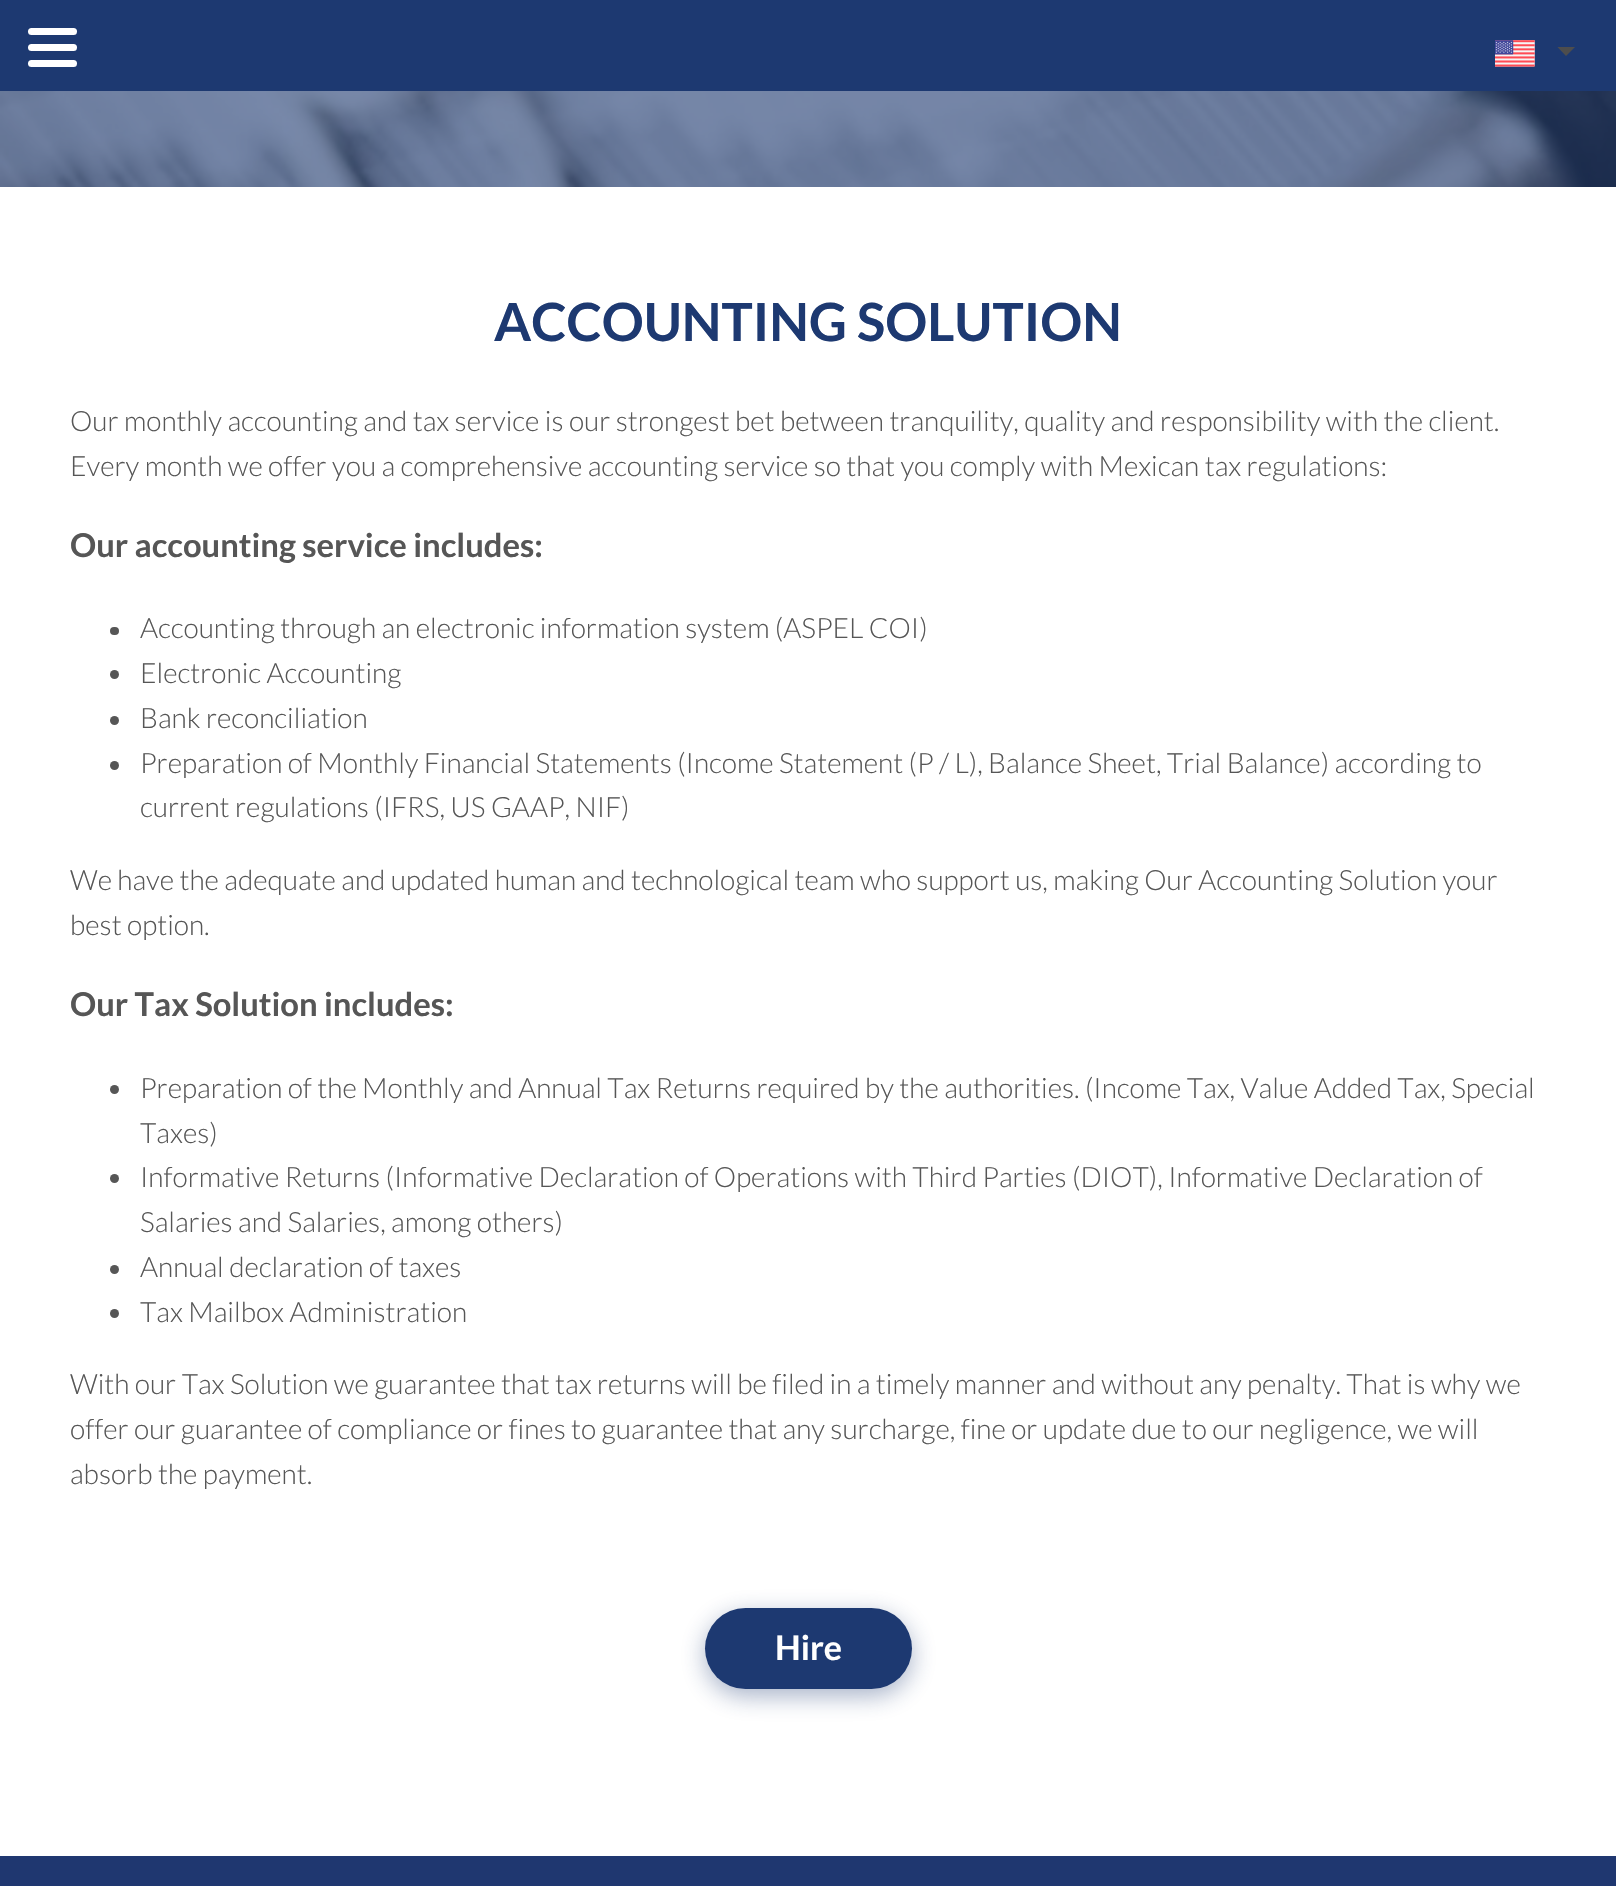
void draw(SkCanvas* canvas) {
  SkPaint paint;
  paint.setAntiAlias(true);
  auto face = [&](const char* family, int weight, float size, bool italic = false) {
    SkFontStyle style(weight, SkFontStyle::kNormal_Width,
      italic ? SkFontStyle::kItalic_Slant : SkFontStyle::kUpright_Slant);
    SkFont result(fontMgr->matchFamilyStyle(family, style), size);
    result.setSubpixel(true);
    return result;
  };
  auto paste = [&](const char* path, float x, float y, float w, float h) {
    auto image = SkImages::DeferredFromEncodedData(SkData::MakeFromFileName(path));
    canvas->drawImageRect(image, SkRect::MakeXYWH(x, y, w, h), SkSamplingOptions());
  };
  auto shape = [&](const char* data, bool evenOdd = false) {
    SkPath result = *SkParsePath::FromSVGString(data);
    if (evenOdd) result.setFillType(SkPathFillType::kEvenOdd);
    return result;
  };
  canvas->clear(0xffffffff);
  paint.setColor(0xff1d3971);
  canvas->drawRect(SkRect::MakeXYWH(0, 0, 1616, 91), paint);
  paint.setColor(0xffffffff);
  canvas->drawRoundRect(SkRect::MakeXYWH(28, 28, 49, 7), 3.5f, 3.5f, paint);
  canvas->drawRoundRect(SkRect::MakeXYWH(28, 44, 49, 7), 3.5f, 3.5f, paint);
  canvas->drawRoundRect(SkRect::MakeXYWH(28, 60, 49, 7), 3.5f, 3.5f, paint);
  paste("img/1.png", 1495, 40, 40, 27);
  paint.setColor(0xff4d4d4d);
  canvas->drawPath(shape("M1557.5 47H1575L1566 56Z"), paint);
  paste("img/2.png", 0, 91, 1616, 96);
  paint.setColor(0xff565656);
  canvas->drawRoundRect(SkRect::MakeXYWH(110, 627, 9, 8), 4, 4, paint);
  canvas->drawCircle(114.5f, 674.5f, 4.5f, paint);
  canvas->drawCircle(114.5f, 720.5f, 4.5f, paint);
  canvas->drawCircle(114.5f, 765.5f, 4.5f, paint);
  canvas->drawCircle(114.5f, 1089.5f, 4.5f, paint);
  canvas->drawCircle(114.5f, 1178.5f, 4.5f, paint);
  canvas->drawCircle(114.5f, 1269.5f, 4.5f, paint);
  canvas->drawCircle(114.5f, 1313.5f, 4.5f, paint);
  paint.setColor(0x631d3971);
  paint.setMaskFilter(SkMaskFilter::MakeBlur(kNormal_SkBlurStyle, 12));
  canvas->drawRoundRect(SkRect::MakeXYWH(705, 1615, 207, 81), 40.5f, 40.5f, paint);
  paint.setMaskFilter(nullptr);
  paint.setColor(0xff1d3971);
  canvas->drawRoundRect(SkRect::MakeXYWH(705, 1608, 207, 81), 40.5f, 40.5f, paint);
  paint.setColor(0xff1f3770);
  canvas->drawRect(SkRect::MakeXYWH(0, 1856, 1616, 30), paint);
  auto f0 = face("Lato", 700, 52.5f);
  paint.setColor(0xff1d3971);
  canvas->drawString("ACCOUNTING SOLUTION", 494, 341, f0, paint);
  auto f1 = face("Lato", 300, 28);
  paint.setColor(0xff565656);
  canvas->drawString("Our monthly accounting and tax service is our strongest bet between tranquility, quality and responsibility with the client.", 70, 431, f1, paint);
  canvas->drawString("Every month we offer you a comprehensive accounting service so that you comply with Mexican tax regulations:", 70, 476, f1, paint);
  auto f2 = face("Lato", 700, 32.75f);
  canvas->drawString("Our accounting service includes:", 70, 557, f2, paint);
  {
    const struct { const char* s; float x, y; } items[] = {
      {"Accounting through an electronic information system (ASPEL COI)", 140, 638},
      {"Electronic Accounting", 140, 683},
      {"Bank reconciliation", 140, 728},
      {"Preparation of Monthly Financial Statements (Income Statement (P / L), Balance Sheet, Trial Balance) according to", 140, 773},
      {"current regulations (IFRS, US GAAP, NIF)", 140, 817},
      {"We have the adequate and updated human and technological team who support us, making Our Accounting Solution your", 70, 890},
      {"best option.", 70, 935},
    };
    for (auto [s, x, y] : items) {
      canvas->drawString(s, x, y, f1, paint);
    }
  }
  canvas->drawString("Our Tax Solution includes:", 70, 1016, f2, paint);
  {
    const struct { const char* s; float x, y; } items[] = {
      {"Preparation of the Monthly and Annual Tax Returns required by the authorities. (Income Tax, Value Added Tax, Special", 140, 1098},
      {"Taxes)", 140, 1143},
      {"Informative Returns (Informative Declaration of Operations with Third Parties (DIOT), Informative Declaration of", 140, 1187},
      {"Salaries and Salaries, among others)", 140, 1232},
      {"Annual declaration of taxes", 140, 1277},
      {"Tax Mailbox Administration", 140, 1322},
      {"With our Tax Solution we guarantee that tax returns will be filed in a timely manner and without any penalty. That is why we", 70, 1394},
      {"offer our guarantee of compliance or fines to guarantee that any surcharge, fine or update due to our negligence, we will", 70, 1439},
      {"absorb the payment.", 70, 1484},
    };
    for (auto [s, x, y] : items) {
      canvas->drawString(s, x, y, f1, paint);
    }
  }
  auto f3 = face("Lato", 700, 34);
  paint.setColor(0xffffffff);
  canvas->drawString("Hire", 775, 1660, f3, paint);
}
